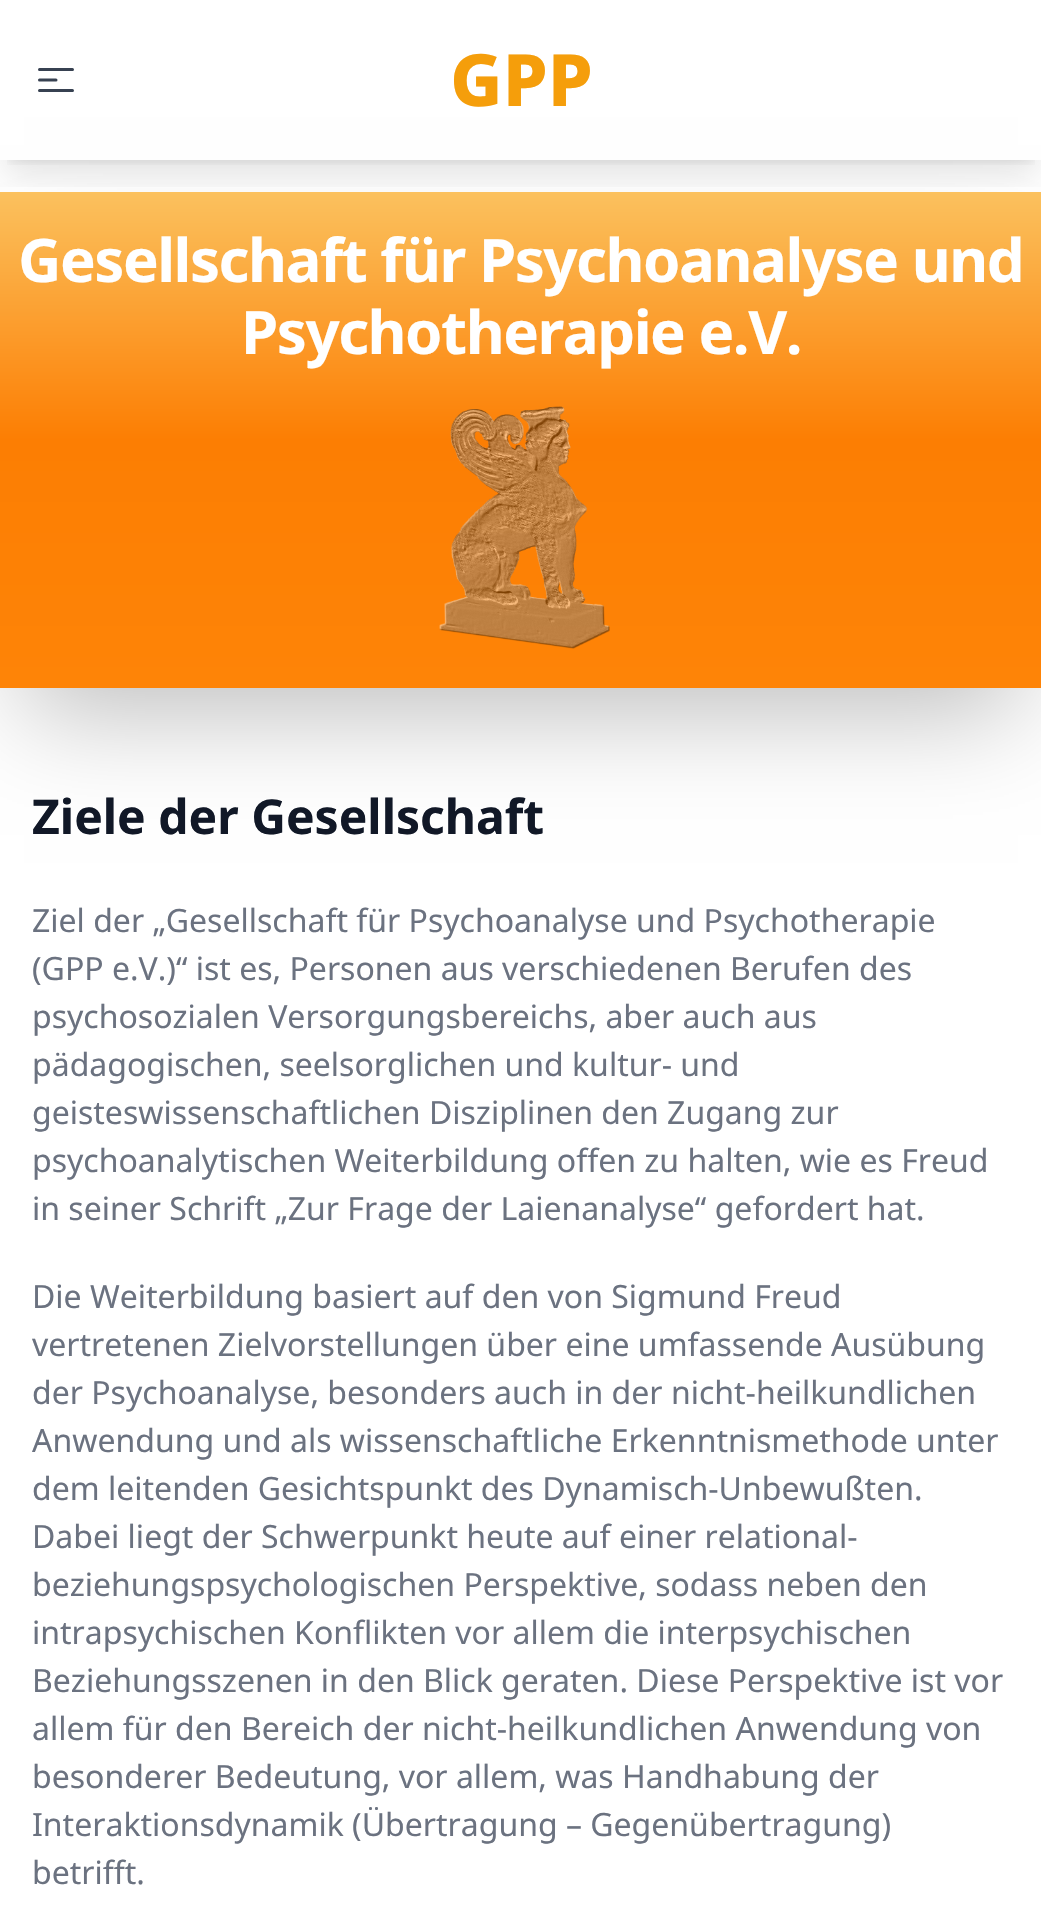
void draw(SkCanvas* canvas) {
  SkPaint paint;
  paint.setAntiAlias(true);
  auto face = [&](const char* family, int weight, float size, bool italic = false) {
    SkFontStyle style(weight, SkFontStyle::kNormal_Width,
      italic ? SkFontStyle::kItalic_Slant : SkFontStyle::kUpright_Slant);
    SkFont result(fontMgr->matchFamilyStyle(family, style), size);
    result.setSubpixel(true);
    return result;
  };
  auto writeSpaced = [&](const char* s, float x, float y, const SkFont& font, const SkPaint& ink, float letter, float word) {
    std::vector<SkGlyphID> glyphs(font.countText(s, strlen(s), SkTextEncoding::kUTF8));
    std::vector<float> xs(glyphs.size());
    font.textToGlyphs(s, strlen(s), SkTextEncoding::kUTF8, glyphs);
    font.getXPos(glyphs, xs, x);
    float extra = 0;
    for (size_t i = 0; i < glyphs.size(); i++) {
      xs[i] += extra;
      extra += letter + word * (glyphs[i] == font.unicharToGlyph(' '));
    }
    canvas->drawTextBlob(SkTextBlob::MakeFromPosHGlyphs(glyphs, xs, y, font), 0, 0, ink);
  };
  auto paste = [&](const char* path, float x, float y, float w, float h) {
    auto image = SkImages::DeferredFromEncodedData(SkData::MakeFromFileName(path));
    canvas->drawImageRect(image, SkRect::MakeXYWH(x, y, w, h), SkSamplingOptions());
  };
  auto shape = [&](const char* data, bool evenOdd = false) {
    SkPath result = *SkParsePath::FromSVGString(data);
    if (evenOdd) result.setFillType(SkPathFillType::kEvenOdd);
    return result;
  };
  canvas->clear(0xffffffff);
  canvas->save();
  canvas->clipRect(SkRect::MakeXYWH(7, 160, 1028, 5));
  paint.setColor(0x1a000000);
  paint.setMaskFilter(SkMaskFilter::MakeBlur(kNormal_SkBlurStyle, 6));
  canvas->drawRect(SkRect::MakeXYWH(8, 16, 1026, 144), paint);
  paint.setMaskFilter(nullptr);
  canvas->restore();
  paint.setColor(0x40000000);
  paint.setMaskFilter(SkMaskFilter::MakeBlur(kNormal_SkBlurStyle, 50));
  canvas->drawRect(SkRect::MakeXYWH(24, 266, 994, 448), paint);
  paint.setMaskFilter(nullptr);
  {
    const SkColor colors[] = {0xfffbc15e, 0xfffc7e03, 0xfffe8407};
    const float stops[] = {0, 0.5f, 1};
    const SkPoint ends[] = {{521, 192}, {521, 688}};
    paint.setShader(SkGradientShader::MakeLinear(ends, colors, stops, 3, SkTileMode::kClamp));
    paint.setAlpha(255);
  }
  canvas->drawRect(SkRect::MakeXYWH(0, 192, 1041, 496), paint);
  canvas->save();
  canvas->clipRect(SkRect::MakeXYWH(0, 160, 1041, 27));
  paint.setShader(nullptr);
  paint.setColor(0x1a000000);
  paint.setMaskFilter(SkMaskFilter::MakeBlur(kNormal_SkBlurStyle, 15));
  canvas->drawRect(SkRect::MakeXYWH(6, 26, 1030, 148), paint);
  paint.setMaskFilter(nullptr);
  canvas->restore();
  paint.setStroke(true);
  paint.setStrokeWidth(3);
  paint.setStrokeCap(SkPaint::kRound_Cap);
  paint.setStrokeJoin(SkPaint::kRound_Join);
  paint.setColor(0xff374151);
  canvas->drawPath(shape("M39.5 69.5H72.5M39.5 80H56M39.5 90.5H72.5"), paint);
  paste("img/1.png", 439, 406, 171, 243);
  auto f0 = face("Noto Sans", 800, 72);
  paint.setStroke(false);
  paint.setColor(0xfff59e0b);
  canvas->drawString("GPP", 450, 106, f0, paint);
  auto f1 = face("Noto Sans", 700, 60);
  paint.setColor(0xffffffff);
  writeSpaced("Gesellschaft für Psychoanalyse und", 18, 282, f1, paint, -1.5f, 0);
  writeSpaced("Psychotherapie e.V.", 241, 354, f1, paint, -1.5f, 0);
  auto f2 = face("Noto Sans", 700, 48);
  paint.setColor(0xff111827);
  canvas->drawString("Ziele der Gesellschaft", 32, 834, f2, paint);
  auto f3 = face("Noto Sans", 400, 32);
  paint.setColor(0xff6b7280);
  {
    const struct { const char* s; float x, y; } items[] = {
      {"Ziel der „Gesellschaft für Psychoanalyse und Psychotherapie", 32, 932},
      {"(GPP e.V.)“ ist es, Personen aus verschiedenen Berufen des", 32, 980},
      {"psychosozialen Versorgungsbereichs, aber auch aus", 32, 1028},
      {"pädagogischen, seelsorglichen und kultur- und", 32, 1076},
      {"geisteswissenschaftlichen Disziplinen den Zugang zur", 32, 1124},
      {"psychoanalytischen Weiterbildung offen zu halten, wie es Freud", 32, 1172},
      {"in seiner Schrift „Zur Frage der Laienanalyse“ gefordert hat.", 32, 1220},
      {"Die Weiterbildung basiert auf den von Sigmund Freud", 32, 1308},
      {"vertretenen Zielvorstellungen über eine umfassende Ausübung", 32, 1356},
      {"der Psychoanalyse, besonders auch in der nicht-heilkundlichen", 32, 1404},
      {"Anwendung und als wissenschaftliche Erkenntnismethode unter", 32, 1452},
      {"dem leitenden Gesichtspunkt des Dynamisch-Unbewußten.", 32, 1500},
      {"Dabei liegt der Schwerpunkt heute auf einer relational-", 32, 1548},
      {"beziehungspsychologischen Perspektive, sodass neben den", 32, 1596},
      {"intrapsychischen Konflikten vor allem die interpsychischen", 32, 1644},
      {"Beziehungsszenen in den Blick geraten. Diese Perspektive ist vor", 32, 1692},
      {"allem für den Bereich der nicht-heilkundlichen Anwendung von", 32, 1740},
      {"besonderer Bedeutung, vor allem, was Handhabung der", 32, 1788},
      {"Interaktionsdynamik (Übertragung – Gegenübertragung)", 32, 1836},
      {"betrifft.", 32, 1884},
    };
    for (auto [s, x, y] : items) {
      canvas->drawString(s, x, y, f3, paint);
    }
  }
}
